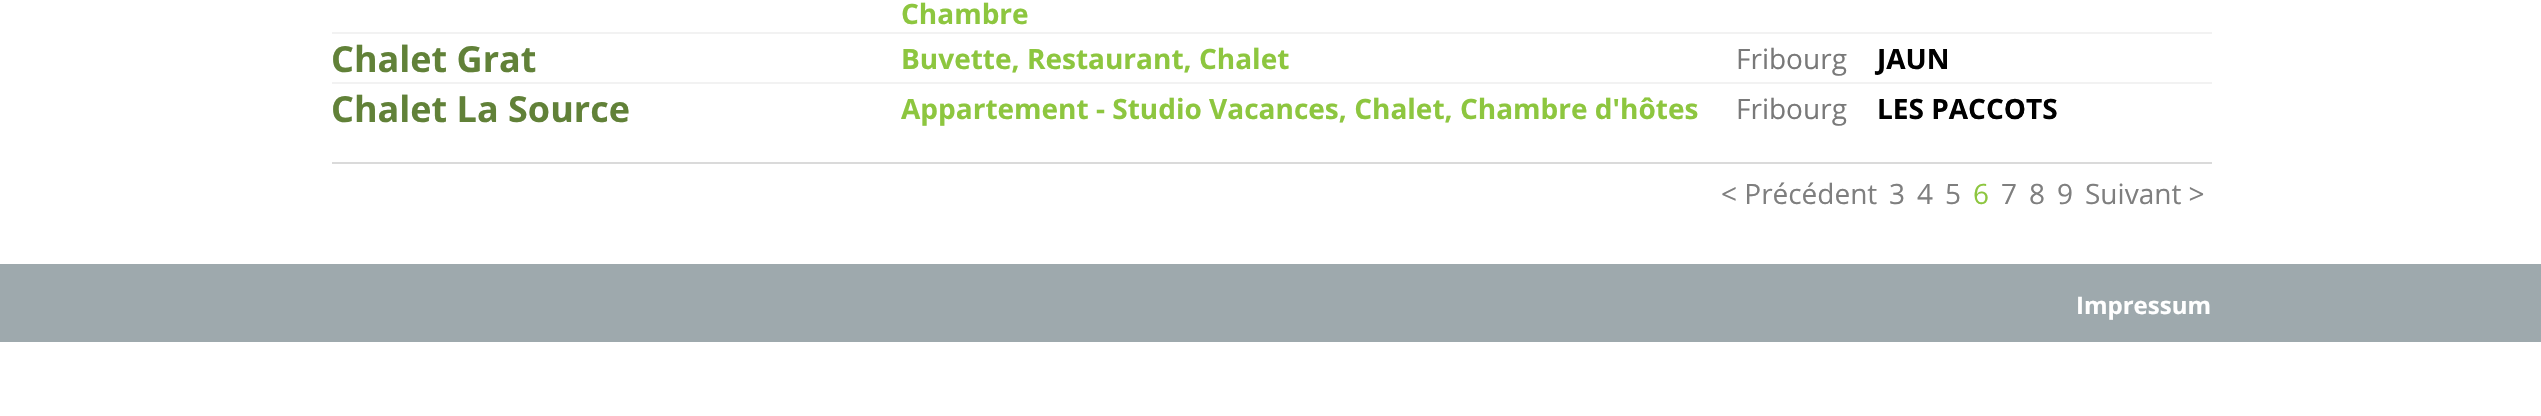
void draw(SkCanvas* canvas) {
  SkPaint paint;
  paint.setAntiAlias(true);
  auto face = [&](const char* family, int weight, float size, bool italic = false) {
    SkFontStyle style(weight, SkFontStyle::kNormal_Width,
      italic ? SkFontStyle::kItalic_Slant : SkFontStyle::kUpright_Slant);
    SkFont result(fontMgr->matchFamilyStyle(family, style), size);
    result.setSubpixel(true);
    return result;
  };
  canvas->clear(0xffffffff);
  {
    const struct { float x, y, w, h; SkColor color; } items[] = {
      {332, 162, 1880, 2, 0xffdadada},
      {332, 32, 1880, 2, 0xfff2f2f2},
      {332, 82, 1880, 2, 0xfff2f2f2},
      {0, 264, 2541, 78, 0xff9ea9ad},
    };
    for (auto [x, y, w, h, color] : items) {
      paint.setColor(color);
      canvas->drawRect(SkRect::MakeXYWH(x, y, w, h), paint);
    }
  }
  auto f0 = face("Open Sans", 700, 28);
  paint.setColor(0xff8dc63f);
  canvas->drawString("Chambre", 901, 24, f0, paint);
  auto f1 = face("Open Sans", 700, 36);
  paint.setColor(0xff618138);
  canvas->drawString("Chalet Grat", 331, 72, f1, paint);
  paint.setColor(0xff8dc63f);
  canvas->drawString("Buvette, Restaurant, Chalet", 901, 69, f0, paint);
  auto f2 = face("Open Sans", 400, 28);
  paint.setColor(0xff797979);
  canvas->drawString("Fribourg", 1736, 69, f2, paint);
  paint.setColor(0xff000000);
  canvas->drawString("JAUN", 1877, 69, f0, paint);
  paint.setColor(0xff618138);
  canvas->drawString("Chalet La Source", 331, 122, f1, paint);
  paint.setColor(0xff8dc63f);
  canvas->drawString("Appartement - Studio Vacances, Chalet, Chambre d'hôtes", 901, 119, f0, paint);
  paint.setColor(0xff797979);
  canvas->drawString("Fribourg", 1736, 119, f2, paint);
  paint.setColor(0xff000000);
  canvas->drawString("LES PACCOTS", 1877, 119, f0, paint);
  paint.setColor(0xff7f7f7f);
  {
    const struct { const char* s; float x, y; } items[] = {
      {"< Précédent", 1721, 204},
      {"3", 1889, 204},
      {"4", 1917, 204},
      {"5", 1945, 204},
    };
    for (auto [s, x, y] : items) {
      canvas->drawString(s, x, y, f2, paint);
    }
  }
  paint.setColor(0xff8dc63f);
  canvas->drawString("6", 1973, 204, f2, paint);
  paint.setColor(0xff7f7f7f);
  {
    const struct { const char* s; float x, y; } items[] = {
      {"7", 2001, 204},
      {"8", 2029, 204},
      {"9", 2057, 204},
      {"Suivant >", 2085, 204},
    };
    for (auto [s, x, y] : items) {
      canvas->drawString(s, x, y, f2, paint);
    }
  }
  auto f3 = face("Open Sans", 700, 24);
  paint.setColor(0xffffffff);
  canvas->drawString("Impressum", 2076, 314, f3, paint);
}
